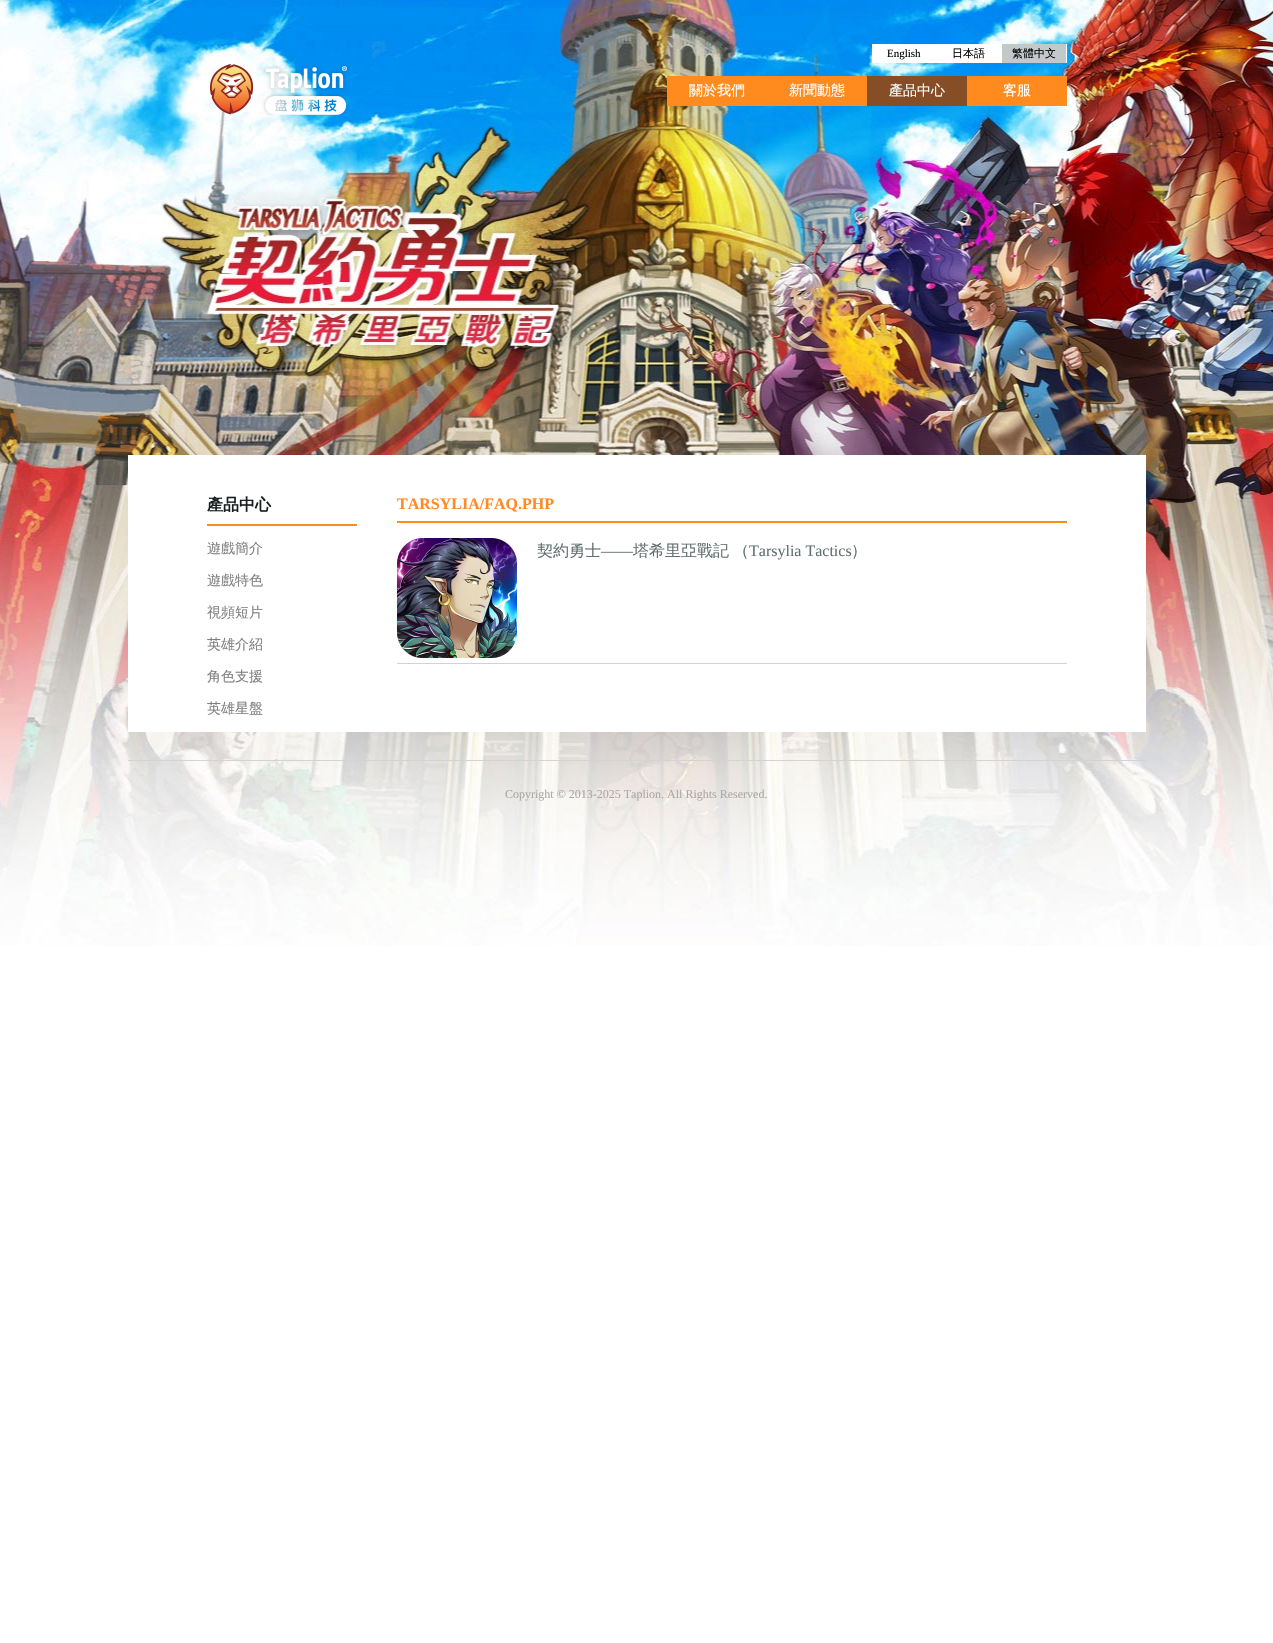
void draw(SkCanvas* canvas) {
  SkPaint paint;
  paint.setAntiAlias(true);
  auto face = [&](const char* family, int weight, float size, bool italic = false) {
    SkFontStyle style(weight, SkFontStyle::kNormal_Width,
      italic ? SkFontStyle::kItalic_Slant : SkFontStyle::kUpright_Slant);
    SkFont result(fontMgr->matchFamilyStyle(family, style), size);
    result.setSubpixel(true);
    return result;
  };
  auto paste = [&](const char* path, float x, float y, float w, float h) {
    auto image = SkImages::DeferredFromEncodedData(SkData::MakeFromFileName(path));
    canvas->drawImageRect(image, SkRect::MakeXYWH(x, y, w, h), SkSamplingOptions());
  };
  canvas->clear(0xffffffff);
  paste("img/1.png", 0, 0, 1273, 946);
  paste("img/2.png", 210, 64, 139, 51);
  {
    const struct { float x, y, w, h; SkColor color; } items[] = {
      {872, 44, 130, 19, 0xffffffff},
      {1002, 44, 64, 19, 0xffc2c9c9},
      {1066, 44, 1, 19, 0xffffffff},
      {667, 76, 200, 30, 0xffff8b1f},
      {867, 76, 100, 30, 0xff854e27},
      {967, 76, 100, 30, 0xffff8b1f},
      {128, 455, 1018, 277, 0xffffffff},
      {207, 524, 150, 2, 0xffff8b1f},
      {397, 521, 670, 2, 0xffff8b1f},
    };
    for (auto [x, y, w, h, color] : items) {
      paint.setColor(color);
      canvas->drawRect(SkRect::MakeXYWH(x, y, w, h), paint);
    }
  }
  paste("img/3.png", 397, 538, 120, 120);
  paint.setColor(0xffd2d2d2);
  canvas->drawRect(SkRect::MakeXYWH(397, 663, 670, 1), paint);
  paint.setColor(0xffd3d3d3);
  canvas->drawRect(SkRect::MakeXYWH(128, 760, 1018, 1), paint);
  auto f0 = face("Liberation Serif", 400, 11);
  paint.setColor(0xff000000);
  canvas->drawString("English", 887, 57, f0, paint);
  auto f1 = face("WenQuanYi Zen Hei", 500, 11);
  canvas->drawString("日本語", 952, 57, f1, paint);
  canvas->drawString("繁體中文", 1012, 57, f1, paint);
  auto f2 = face("WenQuanYi Zen Hei", 500, 14);
  paint.setColor(0xffffffff);
  {
    const struct { const char* s; float x, y; } items[] = {
      {"關於我們", 689, 95},
      {"新聞動態", 789, 95},
      {"產品中心", 889, 95},
      {"客服", 1003, 95},
    };
    for (auto [s, x, y] : items) {
      canvas->drawString(s, x, y, f2, paint);
    }
  }
  auto f3 = face("WenQuanYi Zen Hei", 700, 16);
  paint.setColor(0xff191f20);
  canvas->drawString("產品中心", 207, 510, f3, paint);
  paint.setColor(0xff808080);
  {
    const struct { const char* s; float x, y; } items[] = {
      {"遊戲簡介", 207, 553},
      {"遊戲特色", 207, 585},
      {"視頻短片", 207, 617},
      {"英雄介紹", 207, 649},
      {"角色支援", 207, 681},
      {"英雄星盤", 207, 713},
    };
    for (auto [s, x, y] : items) {
      canvas->drawString(s, x, y, f2, paint);
    }
  }
  auto f4 = face("Liberation Serif", 700, 16);
  paint.setColor(0xffff8922);
  canvas->drawString("TARSYLIA/FAQ.PHP", 397, 509, f4, paint);
  auto f5 = face("WenQuanYi Zen Hei", 500, 16);
  paint.setColor(0xff626f70);
  canvas->drawString("契約勇士", 537, 556, f5, paint);
  auto f6 = face("Liberation Serif", 400, 16);
  canvas->drawString("——", 601, 556, f6, paint);
  canvas->drawString("塔希里亞戰記", 633, 556, f5, paint);
  canvas->drawString("（", 733, 556, f5, paint);
  canvas->drawString("Tarsylia Tactics", 749, 556, f6, paint);
  canvas->drawString("）", 851, 556, f5, paint);
  auto f7 = face("Liberation Serif", 400, 12);
  paint.setColor(0xffa9a9a9);
  canvas->drawString("Copyright © 2013-2025 Taplion. All Rights Reserved.", 505, 798, f7, paint);
}
